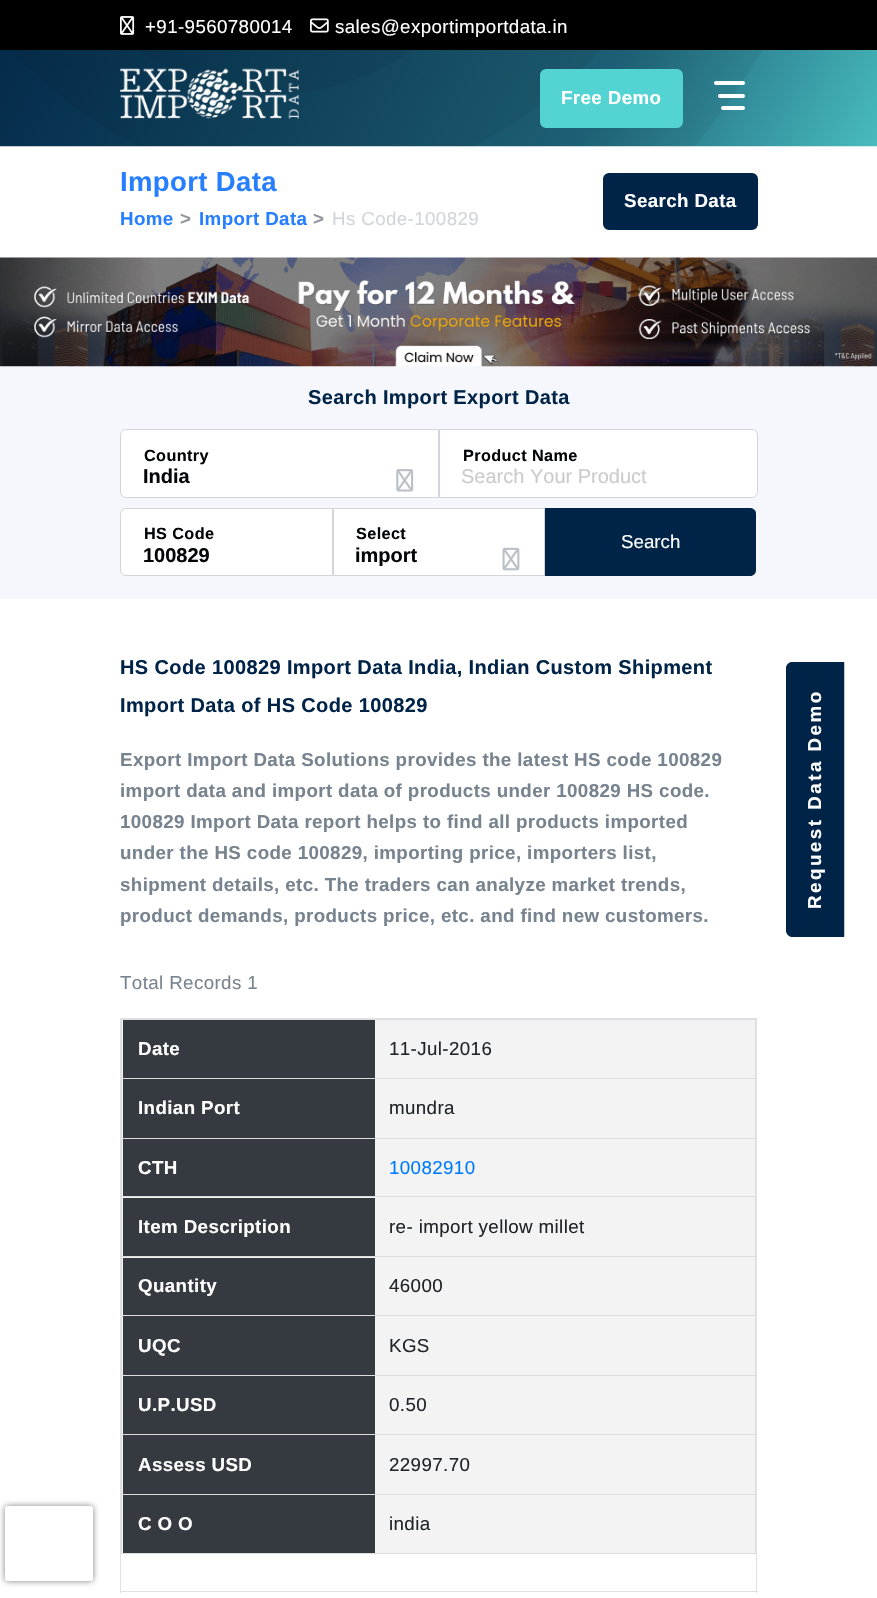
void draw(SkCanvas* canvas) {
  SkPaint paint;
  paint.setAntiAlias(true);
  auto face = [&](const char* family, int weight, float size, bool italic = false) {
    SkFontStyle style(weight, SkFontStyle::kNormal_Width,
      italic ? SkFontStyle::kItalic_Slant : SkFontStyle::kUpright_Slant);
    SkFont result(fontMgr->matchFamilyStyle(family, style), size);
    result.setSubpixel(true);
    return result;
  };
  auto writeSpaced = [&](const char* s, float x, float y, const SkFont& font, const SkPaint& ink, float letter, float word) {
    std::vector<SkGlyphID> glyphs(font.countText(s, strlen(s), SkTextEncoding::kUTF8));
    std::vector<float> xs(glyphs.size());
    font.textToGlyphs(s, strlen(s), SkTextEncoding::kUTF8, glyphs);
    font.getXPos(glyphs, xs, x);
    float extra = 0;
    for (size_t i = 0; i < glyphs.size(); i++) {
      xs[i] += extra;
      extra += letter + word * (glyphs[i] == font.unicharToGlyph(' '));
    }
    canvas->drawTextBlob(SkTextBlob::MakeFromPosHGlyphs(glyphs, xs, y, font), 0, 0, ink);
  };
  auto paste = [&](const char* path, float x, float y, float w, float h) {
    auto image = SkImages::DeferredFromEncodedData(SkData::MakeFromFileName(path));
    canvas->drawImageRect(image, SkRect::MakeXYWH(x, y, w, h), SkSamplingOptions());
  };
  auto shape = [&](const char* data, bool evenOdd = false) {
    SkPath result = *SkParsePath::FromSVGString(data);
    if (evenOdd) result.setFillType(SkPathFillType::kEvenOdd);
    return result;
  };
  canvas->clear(0xffffffff);
  paint.setColor(0xff000000);
  canvas->drawRect(SkRect::MakeXYWH(0, 0, 877, 50), paint);
  paste("img/1.png", 120, 16, 15, 19);
  paste("img/2.png", 310, 18, 19, 15);
  paste("img/3.png", 0, 50, 877, 97);
  paste("img/4.png", 120, 68, 179, 51);
  paint.setColor(0xff53d3d1);
  canvas->drawRoundRect(SkRect::MakeXYWH(541.5f, 70.5f, 140, 56), 4.5f, 4.5f, paint);
  paint.setStroke(true);
  paint.setStrokeWidth(3);
  canvas->drawRoundRect(SkRect::MakeXYWH(541.5f, 70.5f, 140, 56), 4.5f, 4.5f, paint);
  paint.setStroke(false);
  paint.setColor(0xffffffff);
  canvas->drawRoundRect(SkRect::MakeXYWH(714, 81, 31, 4), 2, 2, paint);
  canvas->drawRoundRect(SkRect::MakeXYWH(718, 94, 27, 4), 2, 2, paint);
  canvas->drawRoundRect(SkRect::MakeXYWH(721, 106, 24, 4), 2, 2, paint);
  paint.setColor(0xff002447);
  canvas->drawRoundRect(SkRect::MakeXYWH(604.5f, 174.5f, 152, 54), 4.5f, 4.5f, paint);
  paint.setStroke(true);
  canvas->drawRoundRect(SkRect::MakeXYWH(604.5f, 174.5f, 152, 54), 4.5f, 4.5f, paint);
  paint.setStroke(false);
  paint.setColor(0xfff5f7fc);
  canvas->drawRect(SkRect::MakeXYWH(0, 366, 877, 233), paint);
  paste("img/5.png", 0, 257, 877, 110);
  paint.setColor(0xffffffff);
  canvas->drawPath(shape("M126 429.5H438.5V497.5H126C123 497.5 120.5 495 120.5 492V435C120.5 432 123 429.5 126 429.5Z"), paint);
  paint.setStroke(true);
  paint.setStrokeWidth(1);
  paint.setColor(0xffd3d5db);
  canvas->drawPath(shape("M126 429.5H438.5V497.5H126C123 497.5 120.5 495 120.5 492V435C120.5 432 123 429.5 126 429.5Z"), paint);
  paste("img/6.png", 396, 469, 18, 23);
  paint.setStroke(false);
  paint.setColor(0xffffffff);
  canvas->drawPath(shape("M439.5 429.5H752C755 429.5 757.5 432 757.5 435V492C757.5 495 755 497.5 752 497.5H439.5Z"), paint);
  paint.setStroke(true);
  paint.setColor(0xffd3d5db);
  canvas->drawPath(shape("M439.5 429.5H752C755 429.5 757.5 432 757.5 435V492C757.5 495 755 497.5 752 497.5H439.5Z"), paint);
  paint.setStroke(false);
  paint.setColor(0xffffffff);
  canvas->drawPath(shape("M126 508.5H332.5V575.5H126C123 575.5 120.5 573 120.5 570V514C120.5 511 123 508.5 126 508.5Z"), paint);
  paint.setStroke(true);
  paint.setColor(0xffd3d5db);
  canvas->drawPath(shape("M126 508.5H332.5V575.5H126C123 575.5 120.5 573 120.5 570V514C120.5 511 123 508.5 126 508.5Z"), paint);
  paint.setStroke(false);
  paint.setColor(0xffffffff);
  canvas->drawRect(SkRect::MakeXYWH(333.5f, 508.5f, 211, 67), paint);
  paint.setStroke(true);
  paint.setColor(0xffd3d5db);
  canvas->drawRect(SkRect::MakeXYWH(333.5f, 508.5f, 211, 67), paint);
  paste("img/7.png", 502, 547, 18, 24);
  paint.setStroke(false);
  paint.setColor(0xff002447);
  canvas->drawPath(shape("M545 508H750C753.5 508 756 510.5 756 514V570C756 573.5 753.5 576 750 576H545Z"), paint);
  {
    const struct { float x, y, w, h; SkColor color; } items[] = {
      {120, 1018, 638, 1, 0xffdee2e6},
      {756, 1018, 1, 575, 0xffdee2e6},
      {120, 1591, 638, 1, 0xffdee2e6},
      {120, 1018, 1, 575, 0xffdee2e6},
      {122, 1020, 633, 533, 0xfff3f3f3},
      {121, 1553, 635, 1, 0xffdddddd},
      {121, 1019, 635, 1, 0xffdddddd},
      {755, 1019, 1, 59, 0xffdddddd},
      {121, 1019, 1, 59, 0xffdddddd},
      {123, 1020, 252, 58, 0xff343a40},
      {121, 1078, 635, 1, 0xffdddddd},
      {755, 1078, 1, 60, 0xffdddddd},
      {121, 1078, 1, 60, 0xffdddddd},
      {123, 1079, 252, 59, 0xff343a40},
      {121, 1138, 635, 1, 0xffdddddd},
      {755, 1138, 1, 58, 0xffdddddd},
      {121, 1138, 1, 58, 0xffdddddd},
      {123, 1139, 252, 57, 0xff343a40},
      {121, 1196, 635, 1, 0xffdddddd},
      {755, 1196, 1, 60, 0xffdddddd},
      {121, 1196, 1, 60, 0xffdddddd},
      {123, 1198, 252, 58, 0xff343a40},
      {121, 1256, 635, 1, 0xffdddddd},
      {755, 1256, 1, 59, 0xffdddddd},
      {121, 1256, 1, 59, 0xffdddddd},
      {123, 1258, 252, 57, 0xff343a40},
      {121, 1315, 635, 1, 0xffdddddd},
      {755, 1315, 1, 60, 0xffdddddd},
      {121, 1315, 1, 60, 0xffdddddd},
      {123, 1316, 252, 59, 0xff343a40},
      {121, 1375, 635, 1, 0xffdddddd},
      {755, 1375, 1, 59, 0xffdddddd},
      {121, 1375, 1, 59, 0xffdddddd},
      {123, 1376, 252, 58, 0xff343a40},
      {121, 1434, 635, 1, 0xffdddddd},
      {755, 1434, 1, 60, 0xffdddddd},
      {121, 1434, 1, 60, 0xffdddddd},
      {123, 1435, 252, 59, 0xff343a40},
      {121, 1494, 635, 1, 0xffdddddd},
      {755, 1494, 1, 59, 0xffdddddd},
      {121, 1494, 1, 59, 0xffdddddd},
      {123, 1495, 252, 58, 0xff343a40},
    };
    for (auto [x, y, w, h, color] : items) {
      paint.setColor(color);
      canvas->drawRect(SkRect::MakeXYWH(x, y, w, h), paint);
    }
  }
  paint.setColor(0xff002447);
  canvas->drawPath(shape("M786 930V668C786 665 789 662 792 662H844V937H792C789 937 786 934 786 930Z"), paint);
  paint.setStroke(true);
  paint.setStrokeWidth(2.5f);
  canvas->drawPath(shape("M787.5 930.5V668.5C787.5 665.5 789.5 663.5 792.5 663.5H843V935.5H792.5C789.5 935.5 787.5 933 787.5 930.5Z"), paint);
  canvas->save();
  canvas->clipPath(shape("M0 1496H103V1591H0ZM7.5 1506H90.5C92 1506 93 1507 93 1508.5V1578.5C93 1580 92 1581 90.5 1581H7.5C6 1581 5 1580 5 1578.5V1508.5C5 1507 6 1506 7.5 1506Z", true), true);
  paint.setStroke(false);
  paint.setColor(0xff808080);
  paint.setMaskFilter(SkMaskFilter::MakeBlur(kNormal_SkBlurStyle, 3));
  canvas->drawRoundRect(SkRect::MakeXYWH(5, 1506, 88, 75), 2.5f, 2.5f, paint);
  paint.setMaskFilter(nullptr);
  canvas->restore();
  auto f0 = face("Liberation Sans", 400, 18.75f);
  paint.setColor(0xffffffff);
  writeSpaced("+91-9560780014", 145, 33, f0, paint, 0.38f, 0);
  writeSpaced("sales@exportimportdata.in", 335, 33, f0, paint, 0.38f, 0);
  auto f1 = face("Liberation Sans", 700, 18.75f);
  writeSpaced("Free Demo", 561, 104, f1, paint, 0.38f, 0);
  auto f2 = face("Liberation Sans", 700, 27.5f);
  paint.setColor(0xff277fff);
  writeSpaced("Import Data", 120, 191, f2, paint, 0.38f, 0);
  writeSpaced("Home", 120, 225, f1, paint, 0.38f, 0);
  paint.setColor(0xff94969c);
  writeSpaced(">", 180, 225, f1, paint, 0.38f, 0);
  paint.setColor(0xff277fff);
  writeSpaced("Import Data", 199, 225, f1, paint, 0.38f, 0);
  paint.setColor(0xff94969c);
  writeSpaced(">", 313, 225, f1, paint, 0.38f, 0);
  paint.setColor(0xffd3d5db);
  writeSpaced("Hs Code-100829", 332, 225, f0, paint, 0.38f, 0);
  paint.setColor(0xffffffff);
  writeSpaced("Search Data", 624, 207, f1, paint, 0.38f, 0);
  auto f3 = face("Liberation Sans", 700, 20);
  paint.setColor(0xff002447);
  writeSpaced("Search Import Export Data", 308, 404, f3, paint, 0.38f, 0);
  auto f4 = face("Liberation Sans", 700, 16.25f);
  paint.setColor(0xff040507);
  writeSpaced("Country", 144, 461, f4, paint, 0.38f, 0);
  canvas->drawString("India", 143, 483, f3, paint);
  writeSpaced("Product Name", 463, 461, f4, paint, 0.38f, 0);
  auto f5 = face("Liberation Sans", 400, 20);
  paint.setColor(0xffcbcbcb);
  canvas->drawString("Search Your Product", 461, 483, f5, paint);
  paint.setColor(0xff040507);
  writeSpaced("HS Code", 144, 539, f4, paint, 0.38f, 0);
  canvas->drawString("100829", 143, 562, f3, paint);
  writeSpaced("Select", 356, 539, f4, paint, 0.38f, 0);
  canvas->save();
  canvas->clipRect(SkRect::MakeXYWH(355, 544, 168, 22));
  canvas->drawString("import", 355, 562, f3, paint);
  canvas->restore();
  paint.setColor(0xffffffff);
  canvas->drawString("Search", 621, 548, f0, paint);
  paint.setColor(0xff002447);
  writeSpaced("HS Code 100829 Import Data India, Indian Custom Shipment", 120, 674, f3, paint, 0.38f, 0);
  writeSpaced("Import Data of HS Code 100829", 120, 712, f3, paint, 0.38f, 0);
  paint.setColor(0xff77838e);
  {
    const struct { const char* s; float x, y; } items[] = {
      {"Export Import Data Solutions provides the latest HS code 100829", 120, 766},
      {"import data and import data of products under 100829 HS code.", 120, 797},
      {"100829 Import Data report helps to find all products imported", 120, 828},
      {"under the HS code 100829, importing price, importers list,", 120, 859},
      {"shipment details, etc. The traders can analyze market trends,", 120, 891},
      {"product demands, products price, etc. and find new customers.", 120, 922},
    };
    for (auto [s, x, y] : items) {
      writeSpaced(s, x, y, f1, paint, 0.38f, 0);
    }
  }
  writeSpaced("Total Records 1", 120, 989, f0, paint, 0.38f, 0);
  paint.setColor(0xffffffff);
  writeSpaced("Date", 138, 1055, f1, paint, 0.38f, 0);
  paint.setColor(0xff212529);
  writeSpaced("11-Jul-2016", 389, 1055, f0, paint, 0.38f, 0);
  paint.setColor(0xffffffff);
  writeSpaced("Indian Port", 138, 1114, f1, paint, 0.38f, 0);
  paint.setColor(0xff212529);
  writeSpaced("mundra", 389, 1114, f0, paint, 0.38f, 0);
  paint.setColor(0xffffffff);
  writeSpaced("CTH", 138, 1174, f1, paint, 0.38f, 0);
  paint.setColor(0xff007bff);
  writeSpaced("10082910", 389, 1174, f0, paint, 0.38f, 0);
  paint.setColor(0xffffffff);
  writeSpaced("Item Description", 138, 1233, f1, paint, 0.38f, 0);
  paint.setColor(0xff212529);
  writeSpaced("re- import yellow millet", 389, 1233, f0, paint, 0.38f, 0);
  paint.setColor(0xffffffff);
  writeSpaced("Quantity", 138, 1292, f1, paint, 0.38f, 0);
  paint.setColor(0xff212529);
  writeSpaced("46000", 389, 1292, f0, paint, 0.38f, 0);
  paint.setColor(0xffffffff);
  writeSpaced("UQC", 138, 1352, f1, paint, 0.38f, 0);
  paint.setColor(0xff212529);
  writeSpaced("KGS", 389, 1352, f0, paint, 0.38f, 0);
  paint.setColor(0xffffffff);
  writeSpaced("U.P.USD", 138, 1411, f1, paint, 0.38f, 0);
  paint.setColor(0xff212529);
  writeSpaced("0.50", 389, 1411, f0, paint, 0.38f, 0);
  paint.setColor(0xffffffff);
  writeSpaced("Assess USD", 138, 1471, f1, paint, 0.38f, 0);
  paint.setColor(0xff212529);
  writeSpaced("22997.70", 389, 1471, f0, paint, 0.38f, 0);
  paint.setColor(0xffffffff);
  writeSpaced("C O O", 138, 1530, f1, paint, 0.38f, 0);
  paint.setColor(0xff212529);
  writeSpaced("india", 389, 1530, f0, paint, 0.38f, 0);
  paint.setColor(0xffffffff);
  canvas->save();
  canvas->rotate(-90, 821, 909);
  writeSpaced("Request Data Demo", 821, 909, f1, paint, 2.5f, 0);
  canvas->restore();
}
